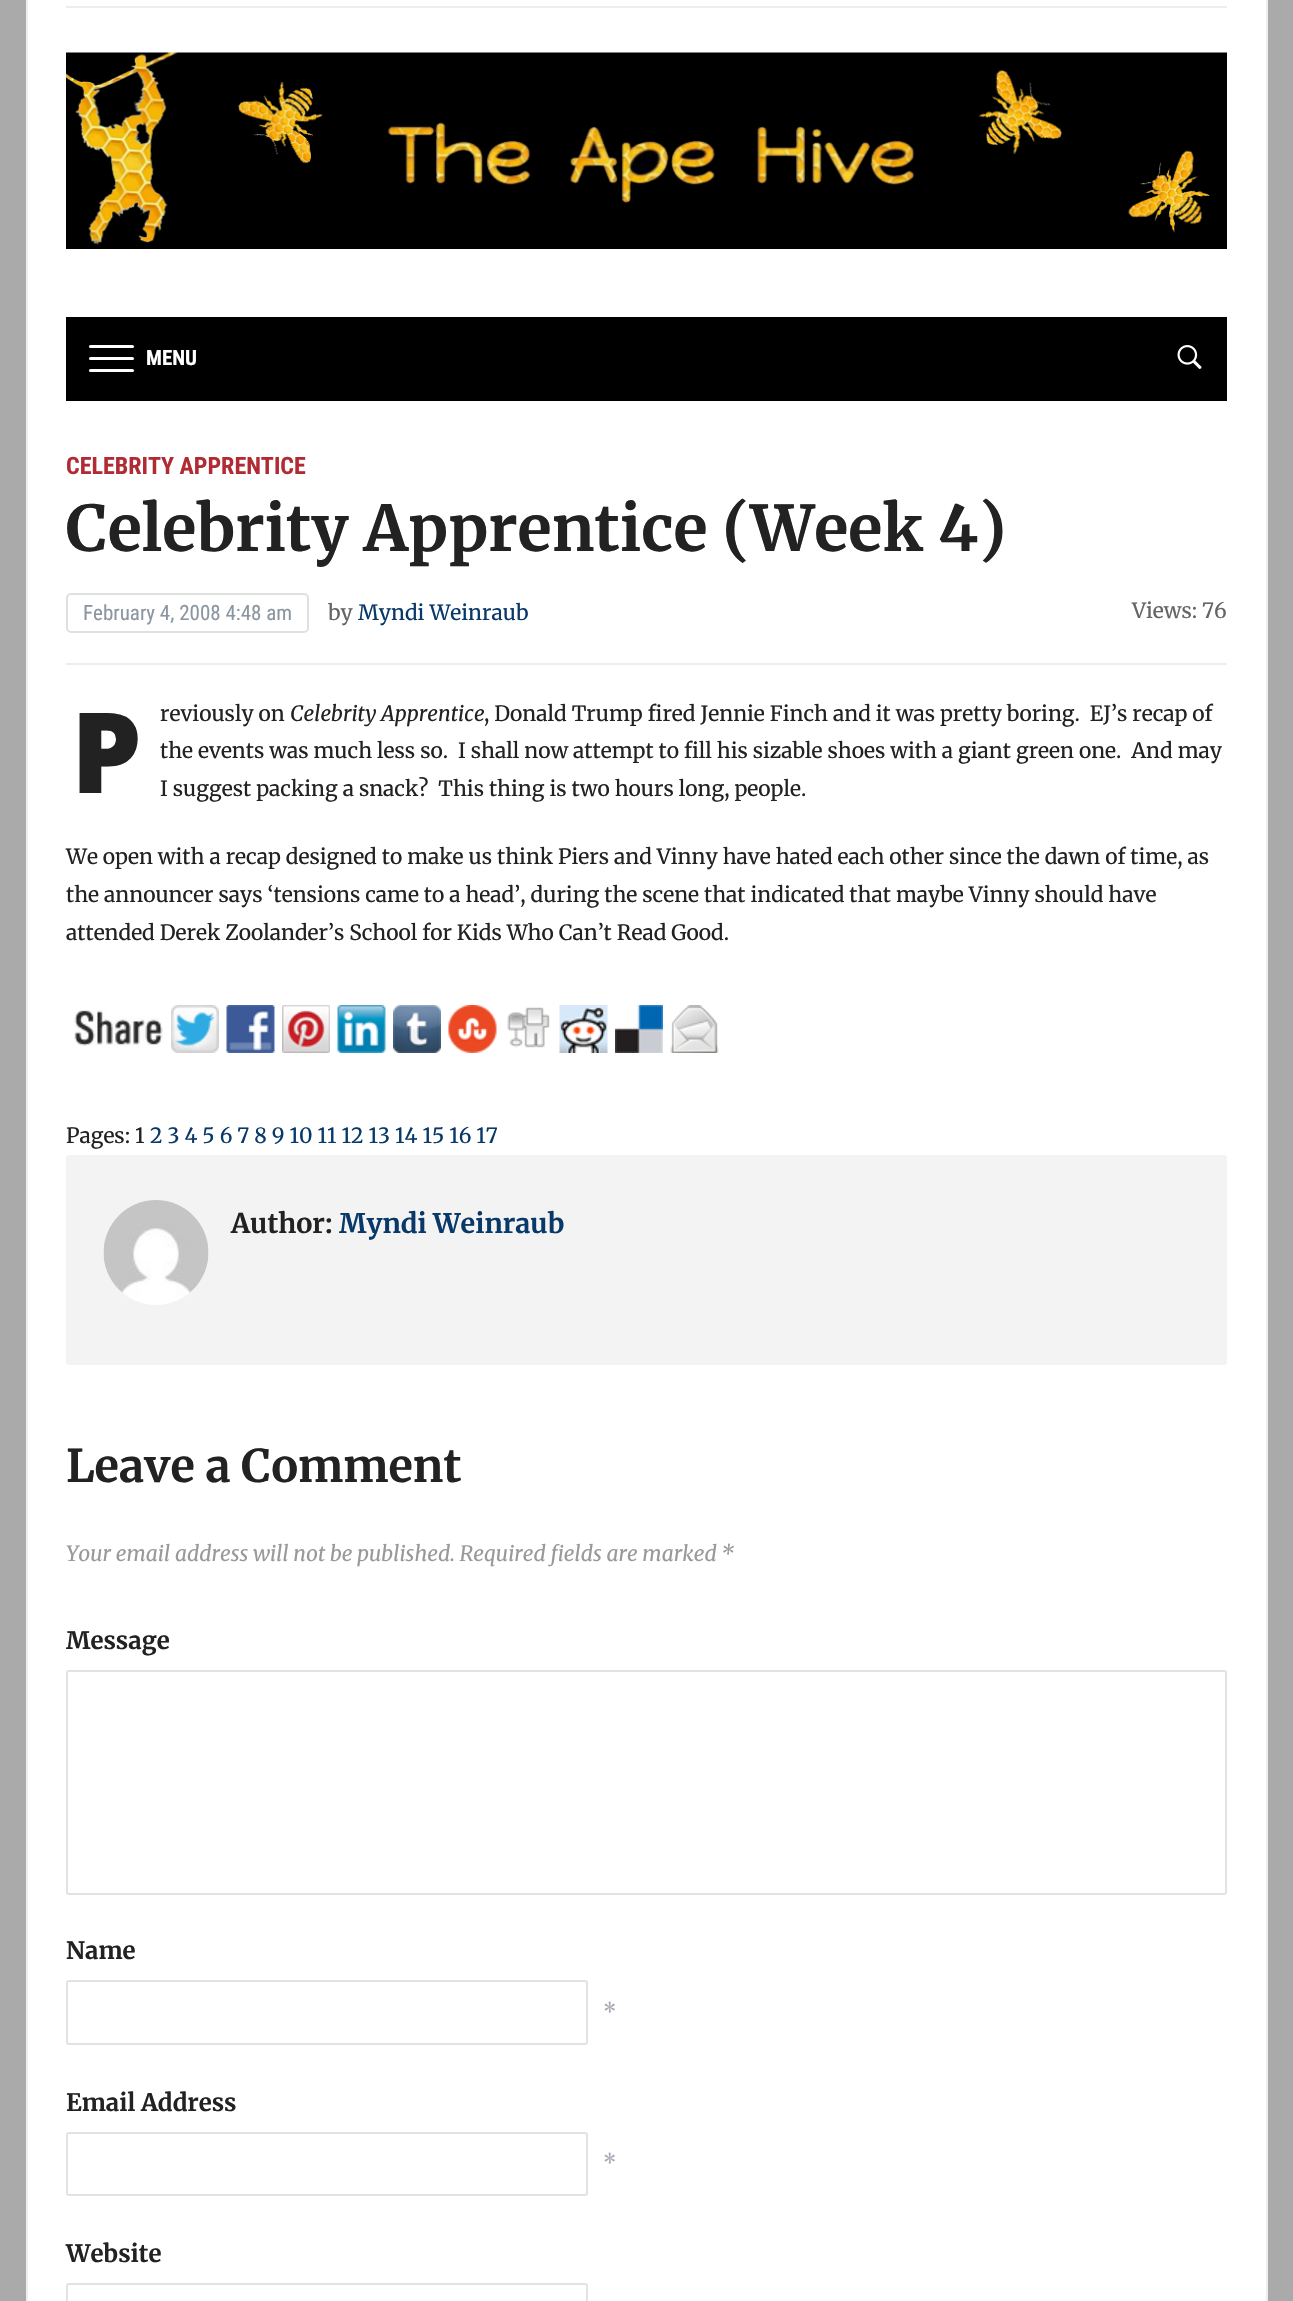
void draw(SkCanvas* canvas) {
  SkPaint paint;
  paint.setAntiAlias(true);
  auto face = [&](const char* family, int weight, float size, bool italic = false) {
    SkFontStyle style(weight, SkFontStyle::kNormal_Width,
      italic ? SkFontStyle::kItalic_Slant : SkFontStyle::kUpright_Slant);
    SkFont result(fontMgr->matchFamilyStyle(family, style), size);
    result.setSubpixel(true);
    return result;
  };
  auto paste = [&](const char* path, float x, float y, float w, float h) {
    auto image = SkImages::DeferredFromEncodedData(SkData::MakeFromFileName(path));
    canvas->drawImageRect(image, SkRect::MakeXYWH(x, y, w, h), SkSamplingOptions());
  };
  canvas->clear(0xffaaaaaa);
  {
    const struct { float x, y, w, h; SkColor color; } items[] = {
      {28, 0, 1238, 2301, 0xffffffff},
      {1266, 0, 2, 2301, 0xffeeeeee},
      {26, 0, 2, 2301, 0xffeeeeee},
      {66, 6, 1161, 2, 0xffeeeeee},
    };
    for (auto [x, y, w, h, color] : items) {
      paint.setColor(color);
      canvas->drawRect(SkRect::MakeXYWH(x, y, w, h), paint);
    }
  }
  paste("img/1.png", 66, 52, 1161, 197);
  paint.setColor(0xff000000);
  canvas->drawRect(SkRect::MakeXYWH(66, 317, 1161, 84), paint);
  paint.setColor(0xffffffff);
  canvas->drawRoundRect(SkRect::MakeXYWH(89, 345, 45, 3), 1.5f, 1.5f, paint);
  canvas->drawRoundRect(SkRect::MakeXYWH(89, 357, 45, 3), 1.5f, 1.5f, paint);
  canvas->drawRoundRect(SkRect::MakeXYWH(89, 369, 45, 3), 1.5f, 1.5f, paint);
  paste("img/2.png", 1177, 345, 25, 24);
  paint.setColor(0xffeeeeee);
  canvas->drawRect(SkRect::MakeXYWH(66, 663, 1161, 2), paint);
  paint.setStroke(true);
  paint.setStrokeWidth(2);
  paint.setColor(0xffdfe0e0);
  canvas->drawRoundRect(SkRect::MakeXYWH(67, 594, 241, 38), 4, 4, paint);
  paste("img/3.png", 74, 1010, 89, 36);
  paste("img/4.png", 171, 1005, 48, 48);
  paste("img/5.png", 226, 1005, 49, 48);
  paste("img/6.png", 282, 1005, 48, 48);
  paste("img/7.png", 337, 1005, 49, 48);
  paste("img/8.png", 393, 1005, 48, 48);
  paste("img/9.png", 448, 1005, 49, 48);
  paste("img/10.png", 507, 1007, 43, 41);
  paste("img/11.png", 559, 1005, 49, 48);
  paste("img/12.png", 615, 1005, 48, 48);
  paste("img/13.png", 670, 1005, 49, 48);
  paint.setStroke(false);
  paint.setColor(0xfff3f3f3);
  canvas->drawRoundRect(SkRect::MakeXYWH(66, 1155, 1161, 210), 3, 3, paint);
  paste("img/14.png", 103, 1200, 106, 105);
  paint.setStroke(true);
  paint.setColor(0xffe2e2e2);
  canvas->drawRoundRect(SkRect::MakeXYWH(67, 1671, 1159, 223), 2, 2, paint);
  canvas->drawRoundRect(SkRect::MakeXYWH(67, 1981, 520, 63), 2, 2, paint);
  canvas->drawRoundRect(SkRect::MakeXYWH(67, 2133, 520, 62), 2, 2, paint);
  canvas->drawRoundRect(SkRect::MakeXYWH(67, 2284, 520, 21), 2, 2, paint);
  auto f0 = face("Roboto Condensed", 700, 21);
  paint.setStroke(false);
  paint.setColor(0xffffffff);
  canvas->drawString("MENU", 146, 365, f0, paint);
  auto f1 = face("Roboto Condensed", 700, 24);
  paint.setColor(0xffb02b33);
  canvas->drawString("CELEBRITY APPRENTICE", 66, 474, f1, paint);
  auto f2 = face("Merriweather", 700, 63);
  paint.setColor(0xff222222);
  canvas->drawString("Celebrity Apprentice (Week 4)", 66, 551, f2, paint);
  auto f3 = face("Roboto Condensed", 400, 21);
  paint.setColor(0xff8b96a0);
  canvas->drawString("February 4, 2008 4:48 am", 83, 620, f3, paint);
  auto f4 = face("Merriweather", 400, 21);
  paint.setColor(0xff656565);
  canvas->drawString("by", 328, 620, f4, paint);
  paint.setColor(0xff093969);
  canvas->drawString("Myndi Weinraub", 358, 620, f4, paint);
  paint.setColor(0xff656565);
  canvas->drawString("Views: 76", 1132, 618, f4, paint);
  auto f5 = face("Noto Sans", 900, 112);
  paint.setColor(0xff222222);
  canvas->drawString("P", 71, 793, f5, paint);
  canvas->drawString("reviously on", 160, 721, f4, paint);
  auto f6 = face("Merriweather", 400, 21, true);
  canvas->drawString("Celebrity Apprentice", 290, 721, f6, paint);
  {
    const struct { const char* s; float x, y; } items[] = {
      {", Donald Trump fired Jennie Finch and it was pretty boring.  EJ’s recap of", 484, 721},
      {"the events was much less so.  I shall now attempt to fill his sizable shoes with a giant green one.  And may", 160, 758},
      {"I suggest packing a snack?  This thing is two hours long, people.", 160, 796},
      {"We open with a recap designed to make us think Piers and Vinny have hated each other since the dawn of time, as", 66, 864},
      {"the announcer says ‘tensions came to a head’, during the scene that indicated that maybe Vinny should have", 66, 902},
      {"attended Derek Zoolander’s School for Kids Who Can’t Read Good.", 66, 940},
      {"Pages: 1", 66, 1143},
    };
    for (auto [s, x, y] : items) {
      canvas->drawString(s, x, y, f4, paint);
    }
  }
  paint.setColor(0xff093969);
  canvas->drawString("2 3 4 5 6 7 8 9 10 11 12 13 14 15 16 17", 150, 1143, f4, paint);
  auto f7 = face("Merriweather", 700, 27);
  paint.setColor(0xff222222);
  canvas->drawString("Author:", 231, 1233, f7, paint);
  paint.setColor(0xff093969);
  canvas->drawString("Myndi Weinraub", 339, 1233, f7, paint);
  auto f8 = face("Merriweather", 700, 45);
  paint.setColor(0xff222222);
  canvas->drawString("Leave a Comment", 66, 1482, f8, paint);
  paint.setColor(0xff999999);
  canvas->drawString("Your email address will not be published. Required fields are marked *", 66, 1561, f6, paint);
  auto f9 = face("Merriweather", 700, 24);
  paint.setColor(0xff222222);
  canvas->drawString("Message", 66, 1649, f9, paint);
  canvas->drawString("Name", 66, 1959, f9, paint);
  paint.setColor(0xffa7a7b3);
  canvas->drawString("*", 603, 2019, f4, paint);
  paint.setColor(0xff222222);
  canvas->drawString("Email Address", 66, 2111, f9, paint);
  paint.setColor(0xffa7a7b3);
  canvas->drawString("*", 603, 2170, f4, paint);
  paint.setColor(0xff222222);
  canvas->drawString("Website", 66, 2262, f9, paint);
}
